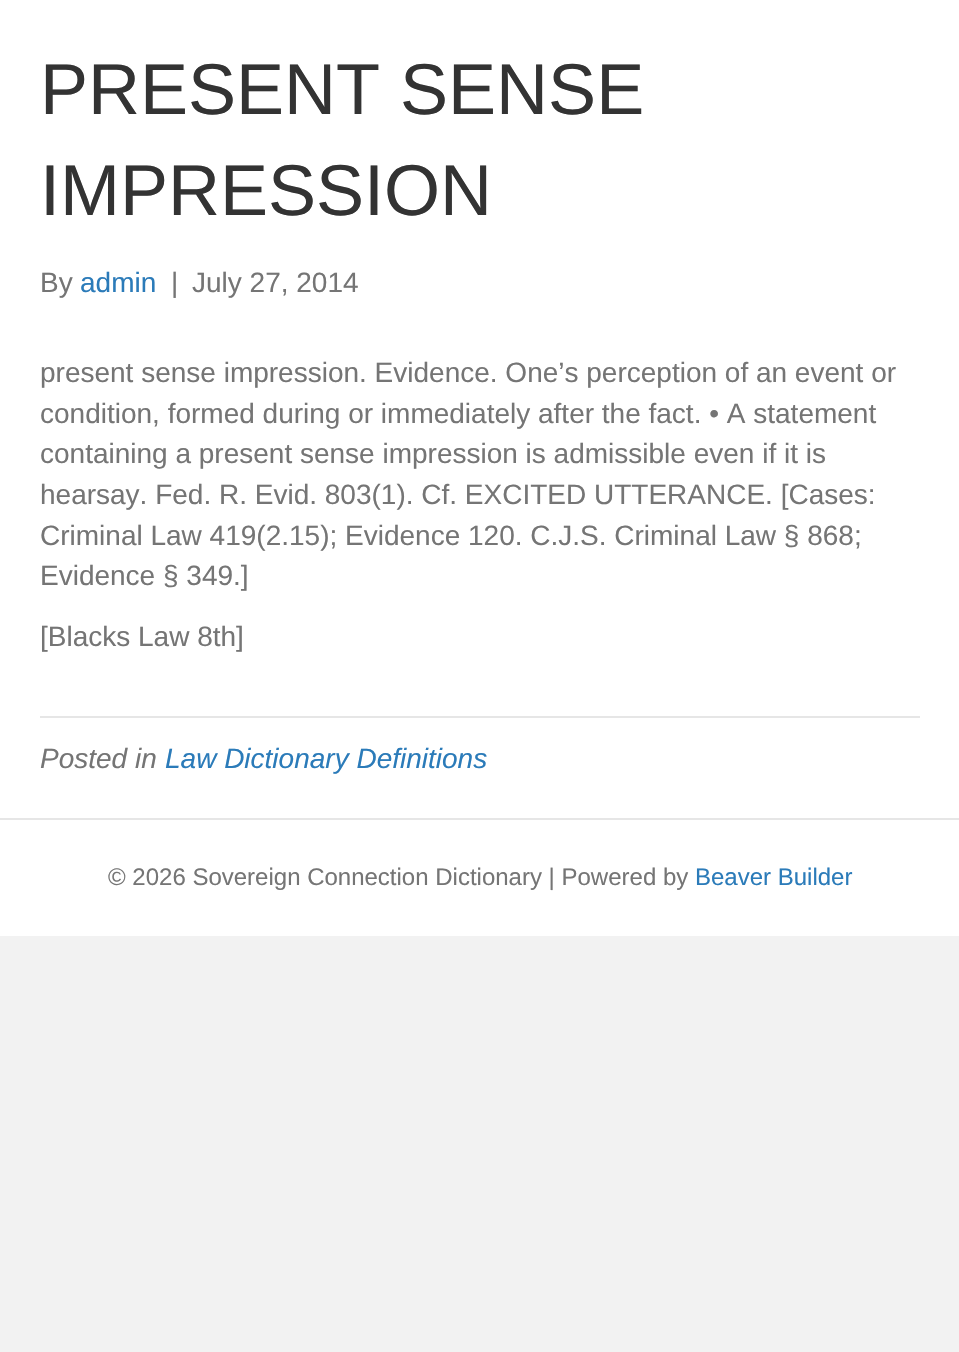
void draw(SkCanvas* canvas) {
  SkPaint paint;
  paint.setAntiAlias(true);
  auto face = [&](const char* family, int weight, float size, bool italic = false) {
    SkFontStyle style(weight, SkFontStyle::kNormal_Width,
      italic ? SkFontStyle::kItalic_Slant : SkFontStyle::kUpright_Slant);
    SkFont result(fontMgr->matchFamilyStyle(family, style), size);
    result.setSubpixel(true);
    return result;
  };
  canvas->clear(0xfff2f2f2);
  {
    const struct { float x, y, w, h; SkColor color; } items[] = {
      {0, 0, 959, 818, 0xffffffff},
      {40, 716, 880, 2, 0xffe6e6e6},
      {0, 820, 959, 116, 0xffffffff},
      {0, 818, 959, 2, 0xffe6e6e6},
    };
    for (auto [x, y, w, h, color] : items) {
      paint.setColor(color);
      canvas->drawRect(SkRect::MakeXYWH(x, y, w, h), paint);
    }
  }
  auto f0 = face("Liberation Sans", 400, 72);
  paint.setColor(0xff333333);
  canvas->drawString("PRESENT SENSE", 40, 114, f0, paint);
  canvas->drawString("IMPRESSION", 40, 215, f0, paint);
  auto f1 = face("Liberation Sans", 400, 28);
  paint.setColor(0xff757575);
  canvas->drawString("By", 40, 292, f1, paint);
  paint.setColor(0xff2b7bb9);
  canvas->drawString("admin", 80, 292, f1, paint);
  paint.setColor(0xff757575);
  {
    const struct { const char* s; float x, y; } items[] = {
      {"|", 171, 292},
      {"July 27, 2014", 192, 292},
      {"present sense impression. Evidence. One’s perception of an event or", 40, 382},
      {"condition, formed during or immediately after the fact. • A statement", 40, 423},
      {"containing a present sense impression is admissible even if it is", 40, 463},
      {"hearsay. Fed. R. Evid. 803(1). Cf. EXCITED UTTERANCE. [Cases:", 40, 504},
      {"Criminal Law 419(2.15); Evidence 120. C.J.S. Criminal Law § 868;", 40, 545},
      {"Evidence § 349.]", 40, 585},
      {"[Blacks Law 8th]", 40, 646},
    };
    for (auto [s, x, y] : items) {
      canvas->drawString(s, x, y, f1, paint);
    }
  }
  auto f2 = face("Liberation Sans", 400, 28, true);
  canvas->drawString("Posted in", 40, 768, f2, paint);
  paint.setColor(0xff2b7bb9);
  canvas->drawString("Law Dictionary Definitions", 165, 768, f2, paint);
  auto f3 = face("Liberation Sans", 400, 24);
  paint.setColor(0xff757575);
  canvas->drawString("© 2026 Sovereign Connection Dictionary | Powered by", 108, 885, f3, paint);
  paint.setColor(0xff2b7bb9);
  canvas->drawString("Beaver Builder", 695, 885, f3, paint);
}
